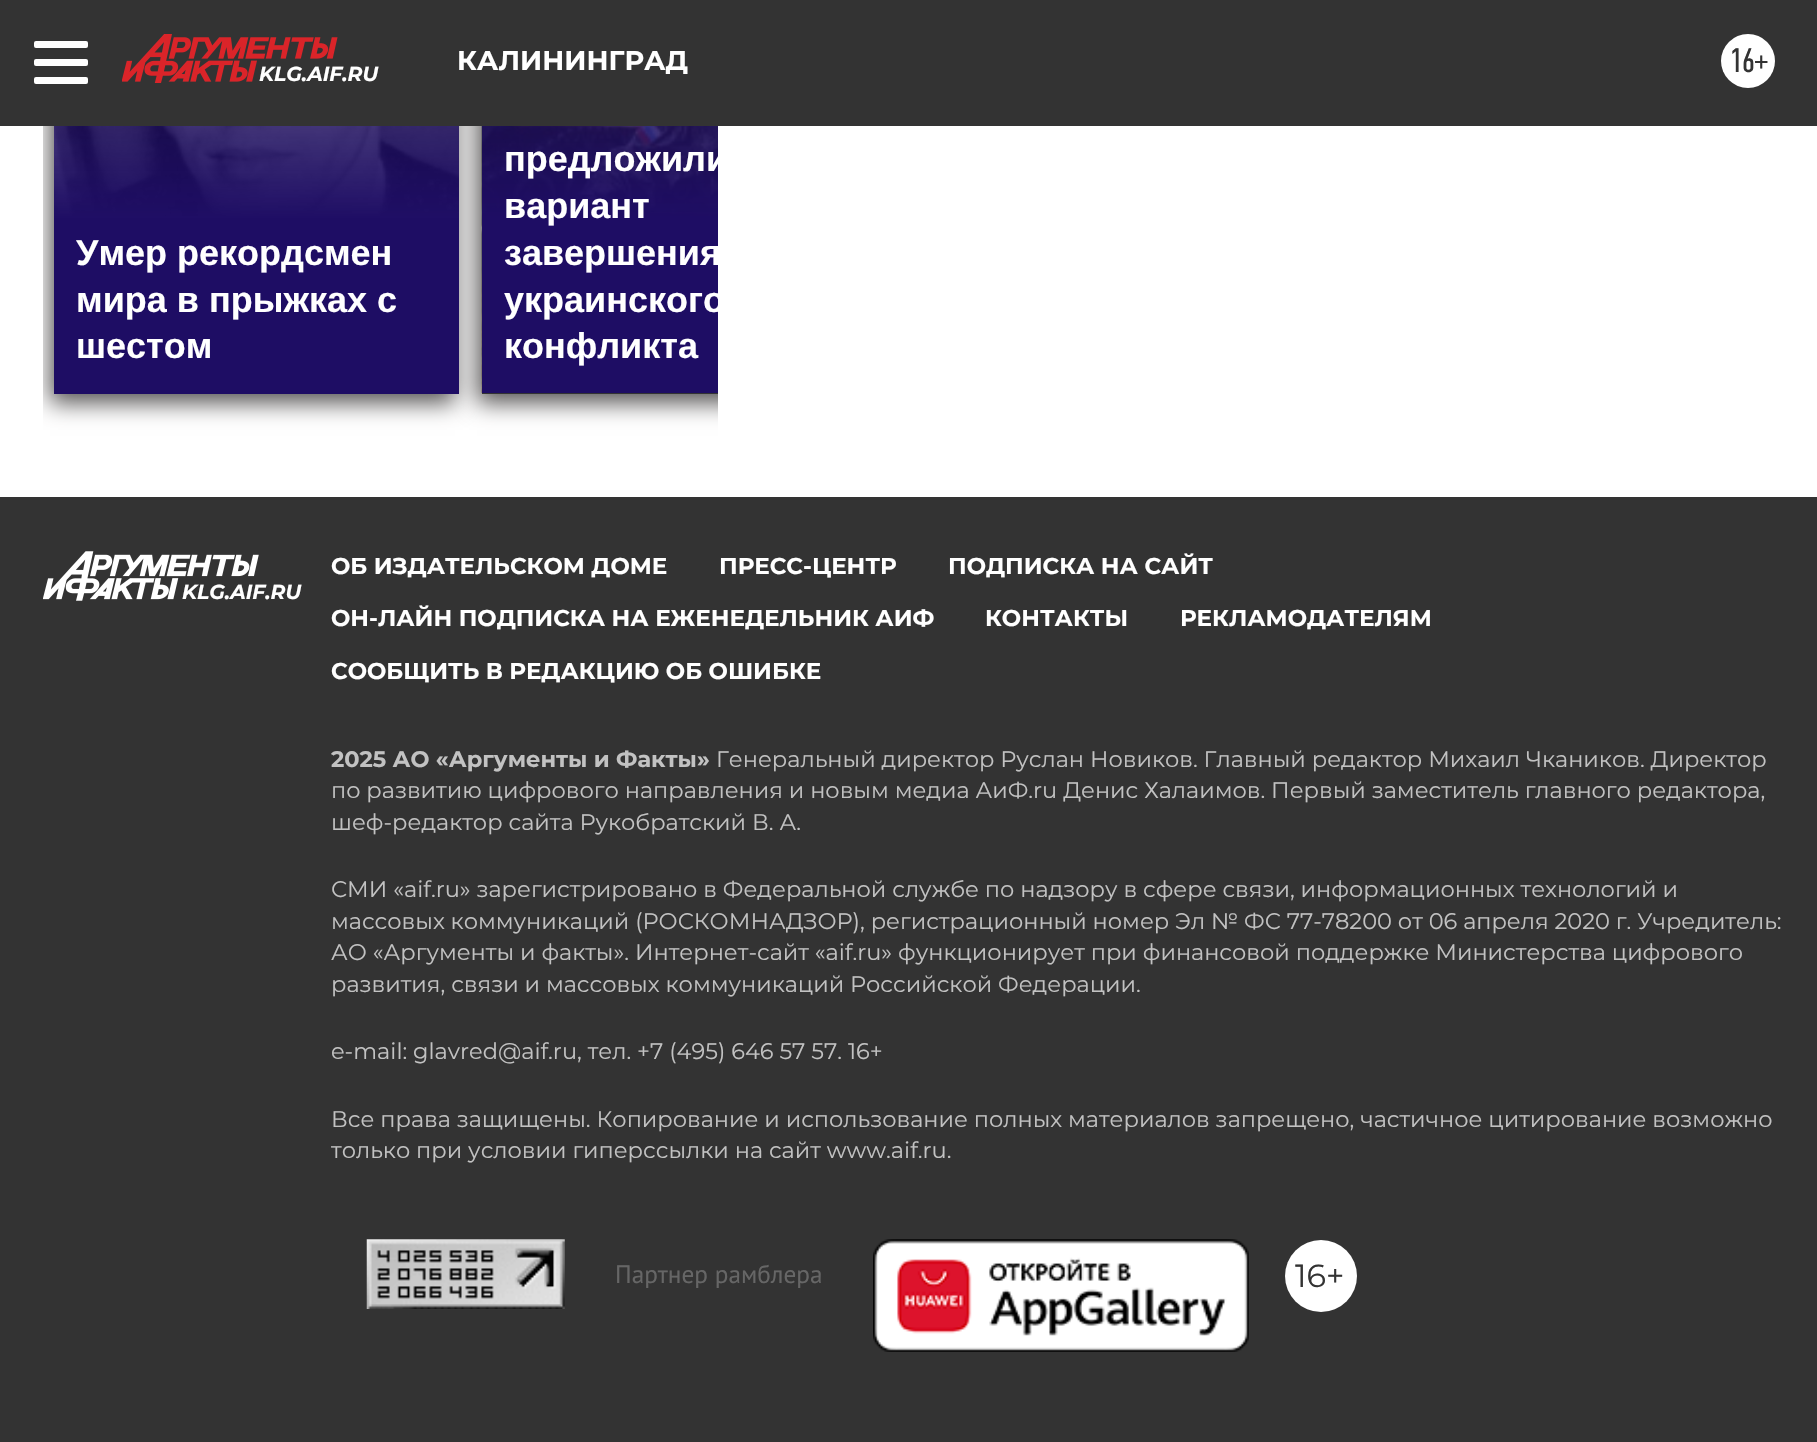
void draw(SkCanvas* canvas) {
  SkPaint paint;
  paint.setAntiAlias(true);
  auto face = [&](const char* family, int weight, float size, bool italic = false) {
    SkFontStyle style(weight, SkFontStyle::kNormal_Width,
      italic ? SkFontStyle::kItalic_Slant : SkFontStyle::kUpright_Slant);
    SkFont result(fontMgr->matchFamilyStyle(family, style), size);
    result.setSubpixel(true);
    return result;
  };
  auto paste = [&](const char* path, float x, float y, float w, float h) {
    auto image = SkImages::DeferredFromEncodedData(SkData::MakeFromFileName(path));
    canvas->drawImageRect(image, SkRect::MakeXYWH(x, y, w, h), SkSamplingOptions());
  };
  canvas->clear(0xffffffff);
  canvas->save();
  canvas->clipRect(SkRect::MakeXYWH(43, 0, 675, 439));
  paint.setColor(0xff565454);
  paint.setMaskFilter(SkMaskFilter::MakeBlur(kNormal_SkBlurStyle, 11));
  canvas->drawRect(SkRect::MakeXYWH(50, -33, 405, 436), paint);
  paint.setMaskFilter(nullptr);
  canvas->restore();
  paste("img/2.png", 54, 126, 405, 90);
  canvas->save();
  canvas->clipRect(SkRect::MakeXYWH(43, 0, 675, 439));
  paint.setMaskFilter(SkMaskFilter::MakeBlur(kNormal_SkBlurStyle, 11));
  canvas->drawRect(SkRect::MakeXYWH(477, -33, 405, 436), paint);
  paint.setMaskFilter(nullptr);
  canvas->restore();
  paint.setColor(0xff333333);
  canvas->drawRect(SkRect::MakeXYWH(0, 0, 1817, 126), paint);
  paint.setColor(0xffffffff);
  canvas->drawRoundRect(SkRect::MakeXYWH(34, 41, 54, 7), 2, 2, paint);
  canvas->drawRoundRect(SkRect::MakeXYWH(34, 59, 54, 7), 2, 2, paint);
  canvas->drawRoundRect(SkRect::MakeXYWH(34, 77, 54, 7), 2, 2, paint);
  paste("img/1.png", 122, 34, 216, 49);
  canvas->drawCircle(1748, 61, 27, paint);
  {
    const SkColor colors[] = {0xff1e0d64, 0x001e0d64};
    const float stops[] = {0.3f, 1};
    const SkPoint ends[] = {{257, 394}, {257, -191}};
    paint.setShader(SkGradientShader::MakeLinear(ends, colors, stops, 2, SkTileMode::kClamp));
    paint.setAlpha(255);
  }
  canvas->drawRect(SkRect::MakeXYWH(54, 126, 405, 268), paint);
  paint.setShader(nullptr);
  paint.setColor(0xff333333);
  canvas->drawRect(SkRect::MakeXYWH(482, 393, 236, 1), paint);
  paste("img/3.png", 481, 126, 237, 267);
  canvas->drawRect(SkRect::MakeXYWH(0, 497, 1817, 945), paint);
  paste("img/4.png", 43, 551, 216, 50);
  paste("img/5.png", 366, 1239, 199, 70);
  paste("img/6.png", 873, 1239, 376, 113);
  paint.setColor(0xffffffff);
  canvas->drawCircle(1321, 1276, 36, paint);
  auto f0 = face("Montserrat", 700, 20.25f, true);
  canvas->drawString("KLG.AIF.RU", 259, 81, f0, paint);
  auto f1 = face("Montserrat", 700, 27);
  canvas->drawString("КАЛИНИНГРАД", 457, 70, f1, paint);
  auto f2 = face("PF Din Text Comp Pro", 400, 34);
  paint.setColor(0xff333333);
  canvas->drawString("16+", 1729, 72, f2, paint);
  auto f3 = face("Liberation Sans", 700, 36);
  paint.setColor(0xffffffff);
  {
    const struct { const char* s; float x, y; } items[] = {
      {"Умер рекордсмен", 76, 265},
      {"мира в прыжках с", 76, 312},
      {"шестом", 76, 358},
    };
    for (auto [s, x, y] : items) {
      canvas->drawString(s, x, y, f3, paint);
    }
  }
  canvas->save();
  canvas->clipRect(SkRect::MakeXYWH(482, 0, 236, 394));
  canvas->drawString("предложили", 504, 171, f3, paint);
  canvas->restore();
  canvas->drawString("вариант", 504, 218, f3, paint);
  canvas->drawString("завершения", 504, 265, f3, paint);
  canvas->save();
  canvas->clipRect(SkRect::MakeXYWH(482, 0, 236, 394));
  canvas->drawString("украинского", 504, 312, f3, paint);
  canvas->restore();
  canvas->drawString("конфликта", 504, 358, f3, paint);
  canvas->drawString("KLG.AIF.RU", 182, 599, f0, paint);
  auto f4 = face("Montserrat", 700, 22.95f);
  {
    const struct { const char* s; float x, y; } items[] = {
      {"ОБ ИЗДАТЕЛЬСКОМ ДОМЕ", 331, 574},
      {"ПРЕСС-ЦЕНТР", 719, 574},
      {"ПОДПИСКА НА САЙТ", 948, 574},
      {"ОН-ЛАЙН ПОДПИСКА НА ЕЖЕНЕДЕЛЬНИК АИФ", 331, 626},
      {"КОНТАКТЫ", 985, 626},
      {"РЕКЛАМОДАТЕЛЯМ", 1180, 626},
      {"СООБЩИТЬ В РЕДАКЦИЮ ОБ ОШИБКЕ", 331, 679},
    };
    for (auto [s, x, y] : items) {
      canvas->drawString(s, x, y, f4, paint);
    }
  }
  auto f5 = face("Montserrat", 700, 22.5f);
  paint.setColor(0xffc2c2c2);
  canvas->drawString("2025 АО «Аргументы и Факты»", 331, 767, f5, paint);
  auto f6 = face("Montserrat", 400, 22.5f);
  {
    const struct { const char* s; float x, y; } items[] = {
      {"Генеральный директор Руслан Новиков. Главный редактор Михаил Чкаников. Директор", 716, 767},
      {"по развитию цифрового направления и новым медиа АиФ.ru Денис Халаимов. Первый заместитель главного редактора,", 331, 798},
      {"шеф-редактор сайта Рукобратский В. А.", 331, 830},
      {"СМИ «aif.ru» зарегистрировано в Федеральной службе по надзору в сфере связи, информационных технологий и", 331, 897},
      {"массовых коммуникаций (РОСКОМНАДЗОР), регистрационный номер Эл № ФС 77-78200 от 06 апреля 2020 г. Учредитель:", 331, 929},
      {"АО «Аргументы и факты». Интернет-сайт «aif.ru» функционирует при финансовой поддержке Министерства цифрового", 331, 960},
      {"развития, связи и массовых коммуникаций Российской Федерации.", 331, 992},
      {"e-mail: glavred@aif.ru, тел. +7 (495) 646 57 57. 16+", 331, 1059},
      {"Все права защищены. Копирование и использование полных материалов запрещено, частичное цитирование возможно", 331, 1127},
      {"только при условии гиперссылки на сайт www.aif.ru.", 331, 1158},
    };
    for (auto [s, x, y] : items) {
      canvas->drawString(s, x, y, f6, paint);
    }
  }
  auto f7 = face("PT Sans", 400, 25.25f);
  paint.setColor(0xff666666);
  canvas->drawString("Партнер рамблера", 615, 1283, f7, paint);
  auto f8 = face("Montserrat", 400, 32);
  paint.setColor(0xff333333);
  canvas->drawString("16+", 1295, 1287, f8, paint);
}
